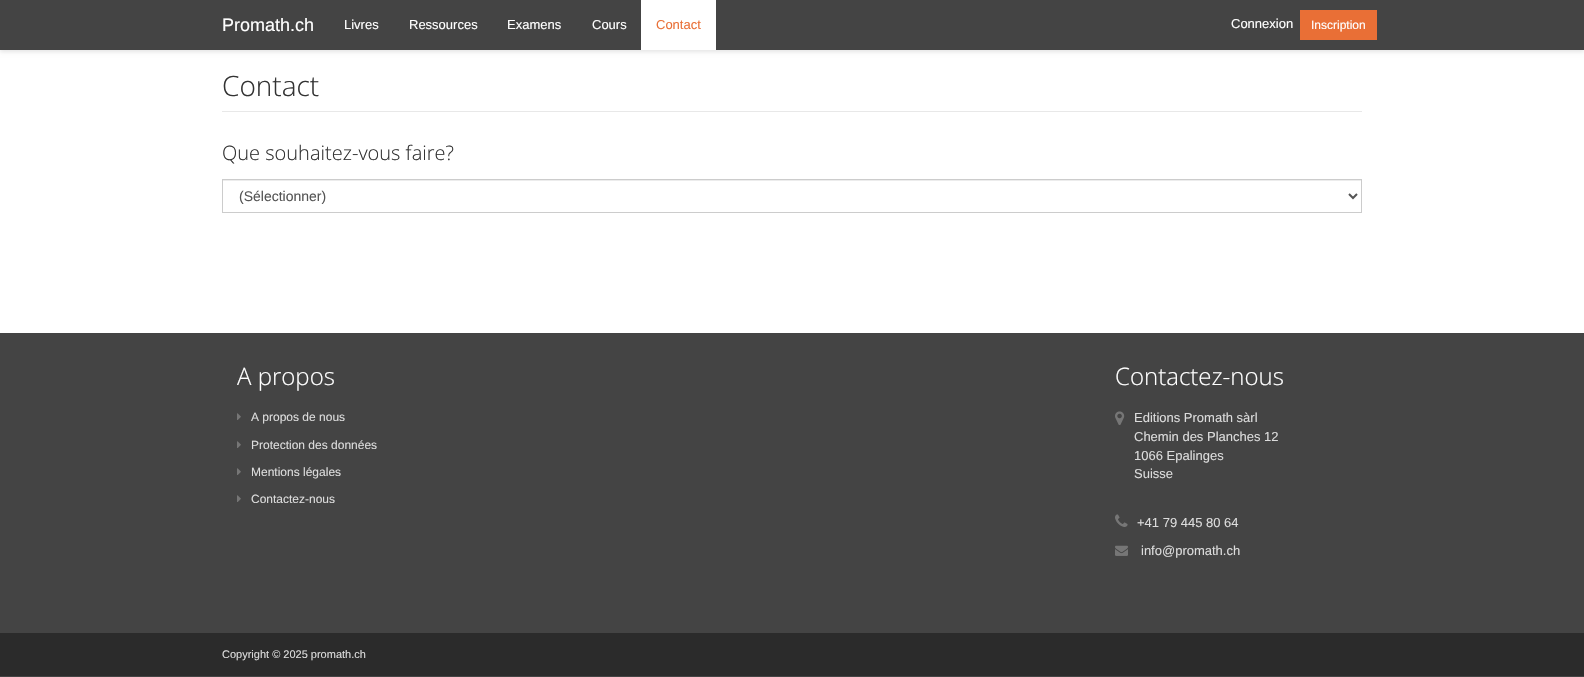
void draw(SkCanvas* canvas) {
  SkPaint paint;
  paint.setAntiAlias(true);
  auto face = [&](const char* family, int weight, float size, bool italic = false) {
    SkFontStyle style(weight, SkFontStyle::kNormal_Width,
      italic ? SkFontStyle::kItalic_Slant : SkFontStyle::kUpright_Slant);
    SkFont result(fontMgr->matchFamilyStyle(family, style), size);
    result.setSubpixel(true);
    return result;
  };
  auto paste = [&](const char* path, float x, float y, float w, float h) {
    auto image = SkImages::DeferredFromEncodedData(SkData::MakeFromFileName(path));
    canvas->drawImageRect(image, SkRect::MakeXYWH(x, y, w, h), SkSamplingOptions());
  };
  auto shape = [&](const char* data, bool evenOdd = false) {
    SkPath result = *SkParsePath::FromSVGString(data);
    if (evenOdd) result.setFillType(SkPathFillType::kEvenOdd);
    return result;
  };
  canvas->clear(0xffffffff);
  paint.setColor(0x1a000000);
  paint.setMaskFilter(SkMaskFilter::MakeBlur(kNormal_SkBlurStyle, 2));
  canvas->drawRect(SkRect::MakeXYWH(0, 2, 1584, 50), paint);
  paint.setMaskFilter(nullptr);
  {
    const struct { float x, y, w, h; SkColor color; } items[] = {
      {0, 0, 1584, 50, 0xff444444},
      {641, 0, 75, 50, 0xffffffff},
      {1300, 10, 77, 30, 0xffe96f36},
      {222, 111, 1140, 1, 0xffe8e8e8},
      {223, 180, 1138, 1, 0xffececec},
    };
    for (auto [x, y, w, h, color] : items) {
      paint.setColor(color);
      canvas->drawRect(SkRect::MakeXYWH(x, y, w, h), paint);
    }
  }
  paint.setStroke(true);
  paint.setStrokeWidth(1);
  paint.setColor(0xffcccccc);
  canvas->drawRect(SkRect::MakeXYWH(222.5f, 179.5f, 1139, 33), paint);
  paint.setStrokeWidth(2);
  paint.setColor(0xff555555);
  canvas->drawPath(shape("M1349 194L1353 198L1357 194"), paint);
  paint.setStroke(false);
  paint.setColor(0xff444444);
  canvas->drawRect(SkRect::MakeXYWH(0, 333, 1584, 344), paint);
  paste("img/1.png", 237, 413, 4, 7);
  paste("img/1.png", 237, 441, 4, 7);
  paste("img/1.png", 237, 468, 4, 7);
  paste("img/1.png", 237, 495, 4, 7);
  paste("img/2.png", 1115, 411, 10, 14);
  paste("img/3.png", 1115, 514, 13, 13);
  paste("img/4.png", 1115, 545, 13, 11);
  paint.setColor(0xff2b2b2b);
  canvas->drawRect(SkRect::MakeXYWH(0, 633, 1584, 43), paint);
  auto f0 = face("Liberation Sans", 400, 18);
  paint.setColor(0xffffffff);
  canvas->drawString("Promath.ch", 222, 31, f0, paint);
  auto f1 = face("Liberation Sans", 400, 13);
  {
    const struct { const char* s; float x, y; } items[] = {
      {"Livres", 344, 29},
      {"Ressources", 409, 29},
      {"Examens", 507, 29},
      {"Cours", 592, 29},
    };
    for (auto [s, x, y] : items) {
      canvas->drawString(s, x, y, f1, paint);
    }
  }
  paint.setColor(0xffe96f36);
  canvas->drawString("Contact", 656, 29, f1, paint);
  paint.setColor(0xffffffff);
  canvas->drawString("Connexion", 1231, 28, f1, paint);
  auto f2 = face("Liberation Sans", 400, 12);
  canvas->drawString("Inscription", 1311, 29, f2, paint);
  auto f3 = face("Open Sans", 300, 28);
  paint.setColor(0xff333333);
  canvas->drawString("Contact", 222, 96, f3, paint);
  auto f4 = face("Open Sans", 300, 20);
  canvas->drawString("Que souhaitez-vous faire?", 222, 160, f4, paint);
  auto f5 = face("Liberation Sans", 400, 14);
  paint.setColor(0xff555555);
  canvas->drawString("(Sélectionner)", 239, 201, f5, paint);
  auto f6 = face("Open Sans", 300, 24);
  paint.setColor(0xffffffff);
  canvas->drawString("A propos", 237, 385, f6, paint);
  paint.setColor(0xffdcdcdc);
  {
    const struct { const char* s; float x, y; } items[] = {
      {"A propos de nous", 251, 421},
      {"Protection des données", 251, 449},
      {"Mentions légales", 251, 476},
      {"Contactez-nous", 251, 503},
    };
    for (auto [s, x, y] : items) {
      canvas->drawString(s, x, y, f2, paint);
    }
  }
  paint.setColor(0xffffffff);
  canvas->drawString("Contactez-nous", 1115, 385, f6, paint);
  paint.setColor(0xffdcdcdc);
  {
    const struct { const char* s; float x, y; } items[] = {
      {"Editions Promath sàrl", 1134, 422},
      {"Chemin des Planches 12", 1134, 441},
      {"1066 Epalinges", 1134, 460},
      {"Suisse", 1134, 478},
      {"+41 79 445 80 64", 1137, 527},
      {"info@promath.ch", 1141, 555},
    };
    for (auto [s, x, y] : items) {
      canvas->drawString(s, x, y, f1, paint);
    }
  }
  auto f7 = face("Liberation Sans", 400, 11);
  canvas->drawString("Copyright © 2025 promath.ch", 222, 658, f7, paint);
}
